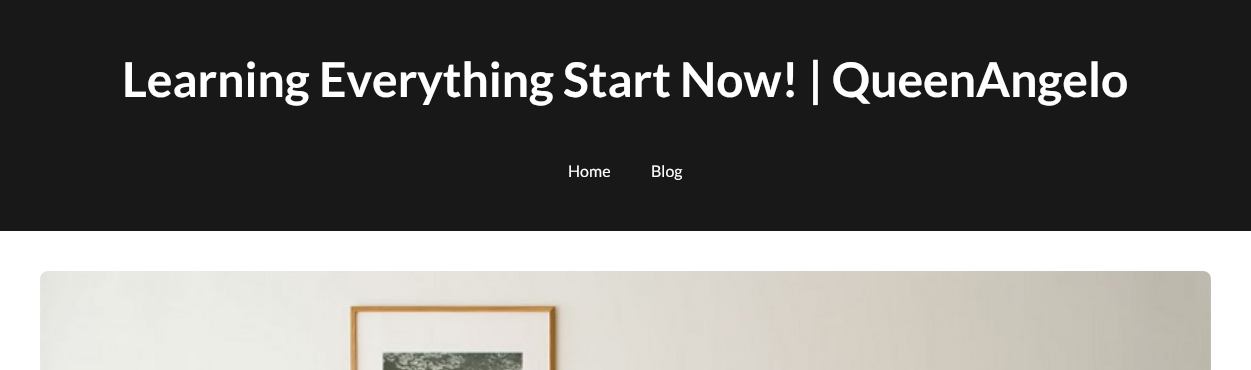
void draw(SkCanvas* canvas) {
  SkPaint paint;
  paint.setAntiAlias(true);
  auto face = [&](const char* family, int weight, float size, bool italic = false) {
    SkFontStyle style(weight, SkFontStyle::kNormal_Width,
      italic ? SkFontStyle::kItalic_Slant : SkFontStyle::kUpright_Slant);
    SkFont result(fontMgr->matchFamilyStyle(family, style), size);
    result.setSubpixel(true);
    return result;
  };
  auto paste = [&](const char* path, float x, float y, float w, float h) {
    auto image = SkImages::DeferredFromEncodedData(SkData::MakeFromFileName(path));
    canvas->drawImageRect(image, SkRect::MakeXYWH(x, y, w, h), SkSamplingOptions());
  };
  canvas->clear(0xffffffff);
  paint.setColor(0xff181818);
  canvas->drawRect(SkRect::MakeXYWH(0, 0, 1251, 231), paint);
  paste("img/1.png", 40, 271, 1171, 99);
  auto f0 = face("Lato", 700, 48);
  paint.setColor(0xffffffff);
  canvas->drawString("Learning Everything Start Now! | QueenAngelo", 122, 97, f0, paint);
  auto f1 = face("Lato", 400, 16);
  canvas->drawString("Home", 568, 177, f1, paint);
  canvas->drawString("Blog", 651, 177, f1, paint);
}
